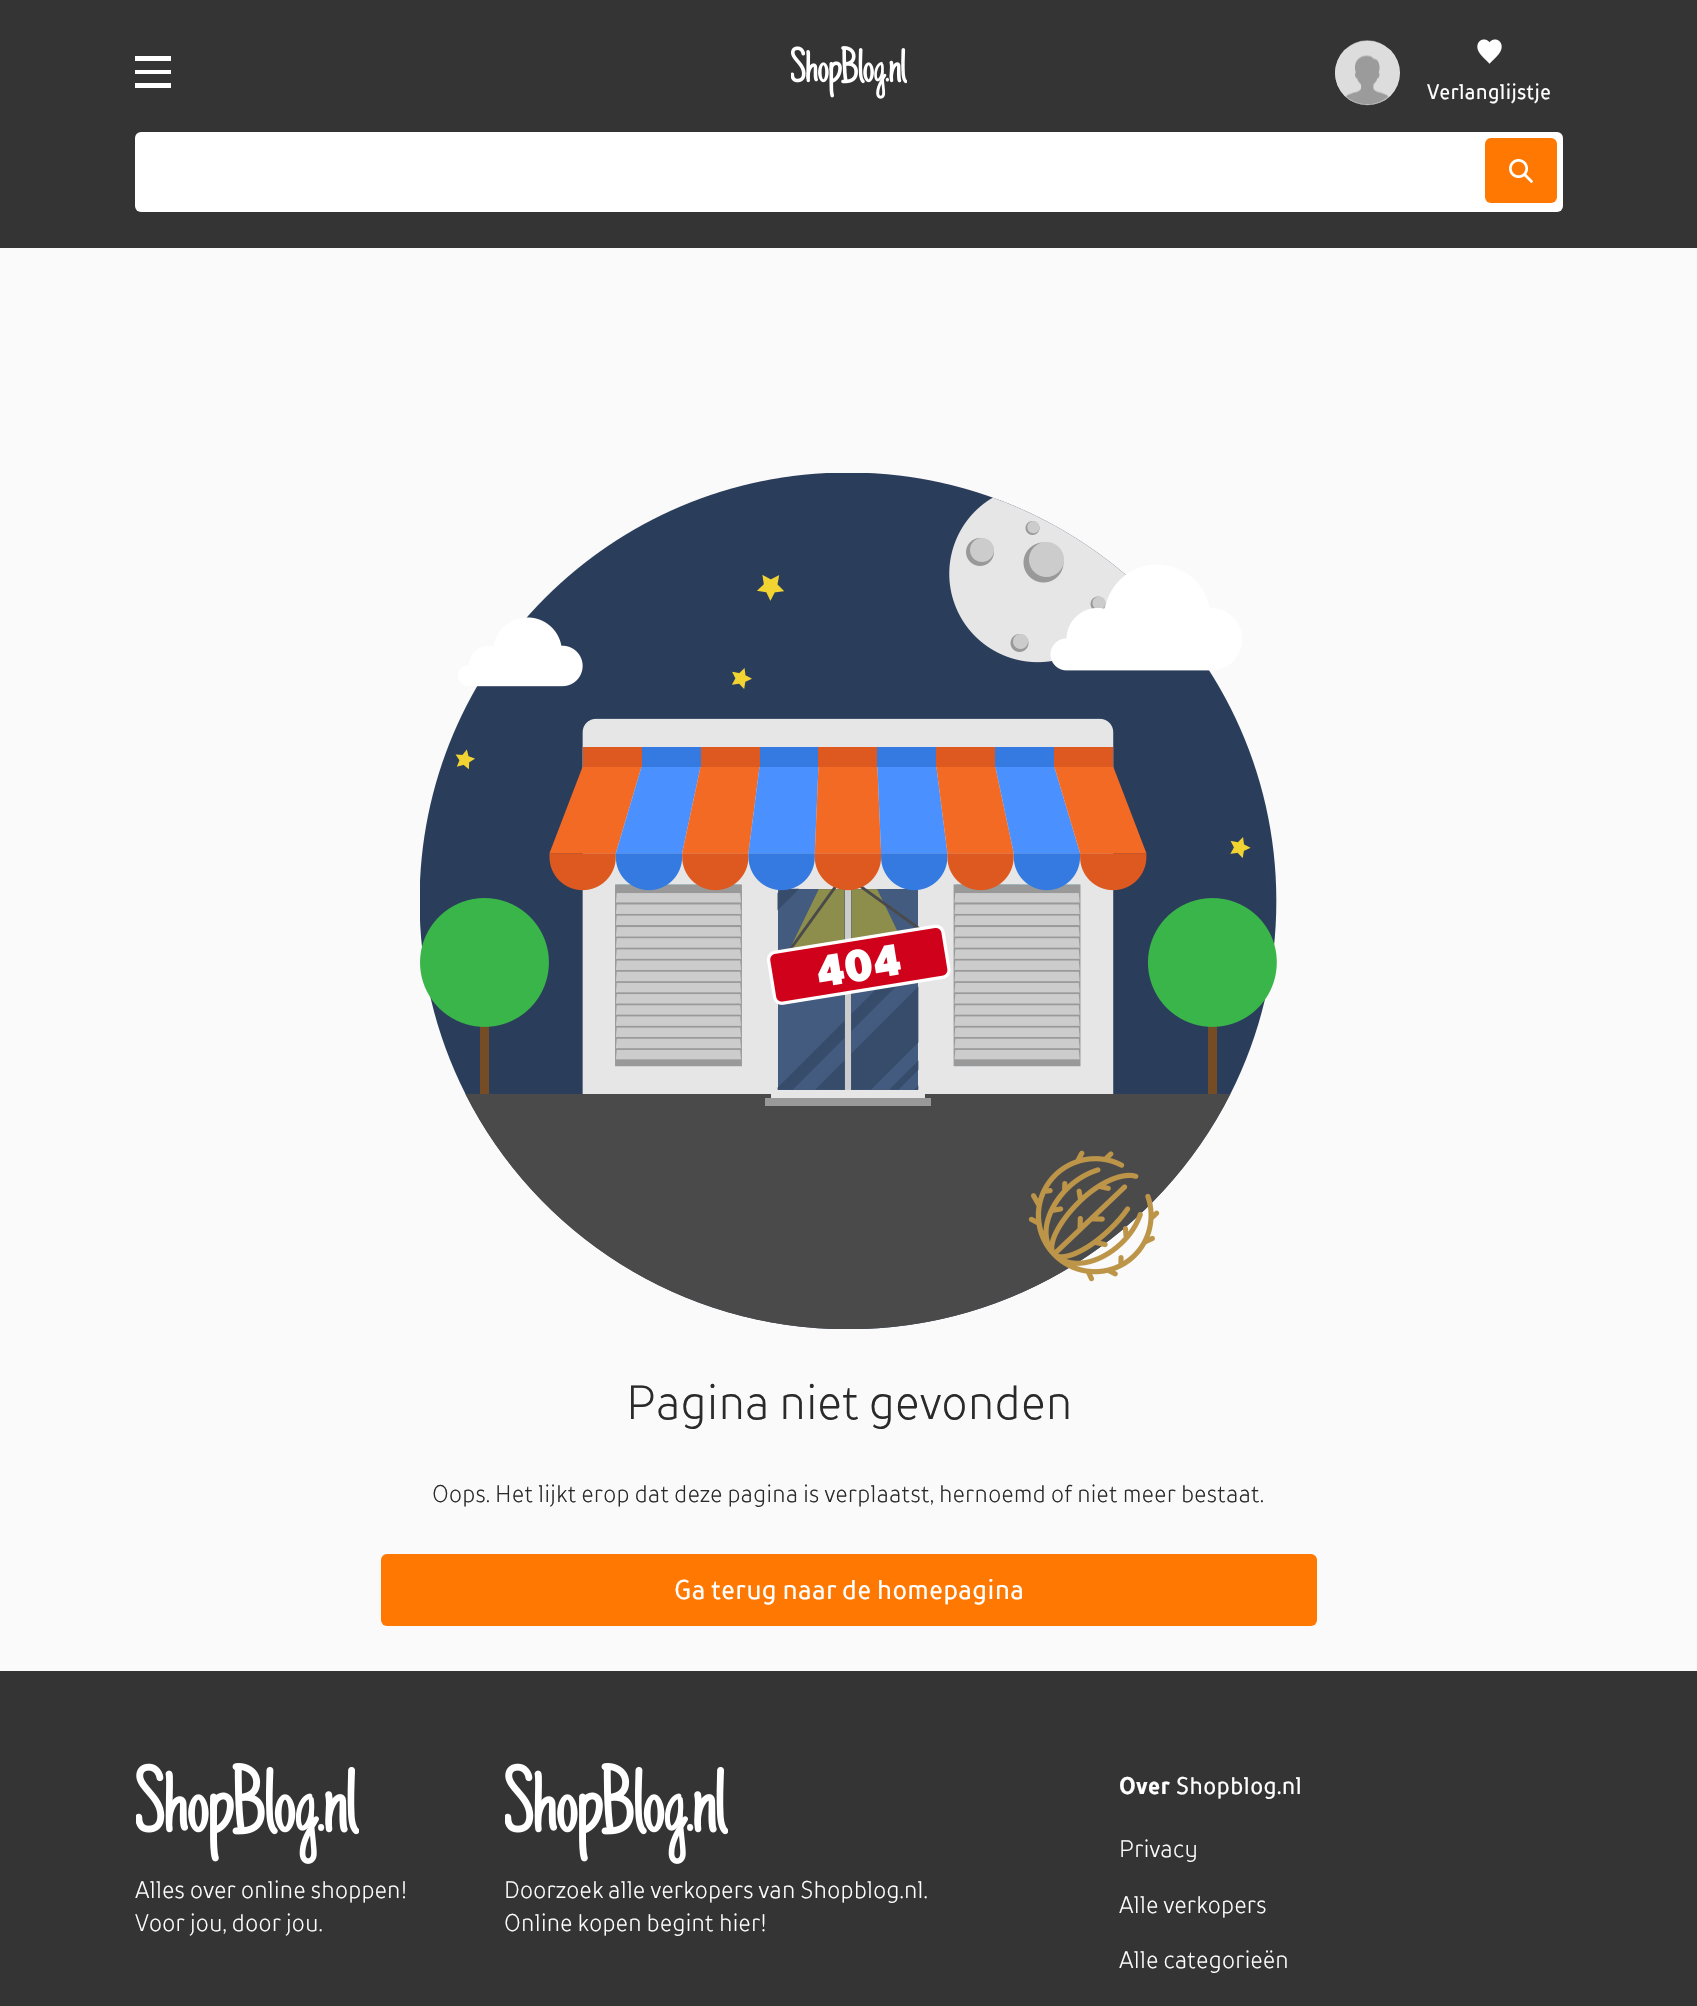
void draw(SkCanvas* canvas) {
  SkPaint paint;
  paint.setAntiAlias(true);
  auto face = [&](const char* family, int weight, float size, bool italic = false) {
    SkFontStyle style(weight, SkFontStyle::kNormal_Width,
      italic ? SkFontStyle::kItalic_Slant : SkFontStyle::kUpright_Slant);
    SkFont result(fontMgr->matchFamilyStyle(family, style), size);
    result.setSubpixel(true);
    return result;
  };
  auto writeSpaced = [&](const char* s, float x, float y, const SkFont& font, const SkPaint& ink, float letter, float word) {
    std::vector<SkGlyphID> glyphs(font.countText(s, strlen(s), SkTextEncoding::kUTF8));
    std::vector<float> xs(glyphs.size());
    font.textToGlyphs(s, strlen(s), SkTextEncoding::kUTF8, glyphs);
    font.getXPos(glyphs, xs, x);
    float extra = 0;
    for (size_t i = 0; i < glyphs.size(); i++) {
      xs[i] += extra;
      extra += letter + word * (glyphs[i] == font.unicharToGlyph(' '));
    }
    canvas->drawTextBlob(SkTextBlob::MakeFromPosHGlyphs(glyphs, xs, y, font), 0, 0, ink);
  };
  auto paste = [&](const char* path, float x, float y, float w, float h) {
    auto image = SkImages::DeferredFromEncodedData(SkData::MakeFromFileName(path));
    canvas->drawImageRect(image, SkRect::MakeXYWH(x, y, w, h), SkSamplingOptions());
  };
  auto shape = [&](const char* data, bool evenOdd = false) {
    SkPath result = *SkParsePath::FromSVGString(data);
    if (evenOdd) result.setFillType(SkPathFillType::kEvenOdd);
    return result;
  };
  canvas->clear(0xfffafafa);
  paint.setColor(0xff343434);
  canvas->drawRect(SkRect::MakeXYWH(0, 0, 1697, 248), paint);
  paint.setColor(0xffffffff);
  canvas->drawPath(shape("M135 56H171V61H135ZM135 70H171V74H135ZM171 83H135V88H171Z"), paint);
  paste("img/1.png", 791, 46, 116, 53);
  paint.setColor(0xffe2e2e2);
  canvas->drawRoundRect(SkRect::MakeXYWH(1335, 41, 65, 64), 32, 32, paint);
  paste("img/2.png", 1335, 40, 64, 66);
  paste("img/3.png", 1477, 39, 25, 25);
  paint.setColor(0xffffffff);
  canvas->drawRoundRect(SkRect::MakeXYWH(135, 132, 1428, 80), 6, 6, paint);
  paint.setColor(0xffff7801);
  canvas->drawRoundRect(SkRect::MakeXYWH(1485, 138, 72, 65), 6, 6, paint);
  paste("img/4.png", 1509, 159, 24, 24);
  paste("img/5.png", 420, 473, 857, 856);
  canvas->drawRoundRect(SkRect::MakeXYWH(381, 1554, 936, 72), 6, 6, paint);
  paint.setColor(0xff343434);
  canvas->drawRect(SkRect::MakeXYWH(0, 1671, 1697, 335), paint);
  paste("img/6.png", 136, 1763, 223, 101);
  paste("img/6.png", 505, 1763, 223, 101);
  auto f0 = face("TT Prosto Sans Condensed", 400, 21);
  paint.setColor(0xffffffff);
  writeSpaced("Verlanglijstje", 1427, 99, f0, paint, 0.3f, 0);
  auto f1 = face("TT Prosto Sans Condensed", 300, 48);
  paint.setColor(0xff2a2a2a);
  writeSpaced("Pagina niet gevonden", 626, 1419, f1, paint, 0.3f, 0);
  auto f2 = face("TT Prosto Sans Condensed", 300, 24);
  writeSpaced("Oops. Het lijkt erop dat deze pagina is verplaatst, hernoemd of niet meer bestaat.", 432, 1502, f2, paint, 0.3f, 0);
  auto f3 = face("TT Prosto Sans Condensed", 400, 27);
  paint.setColor(0xffffffff);
  writeSpaced("Ga terug naar de homepagina", 674, 1599, f3, paint, 0.3f, 0);
  {
    const struct { const char* s; float x, y; } items[] = {
      {"Alles over online shoppen!", 135, 1898},
      {"Voor jou, door jou.", 135, 1931},
      {"Doorzoek alle verkopers van Shopblog.nl.", 504, 1898},
      {"Online kopen begint hier!", 504, 1931},
    };
    for (auto [s, x, y] : items) {
      writeSpaced(s, x, y, f2, paint, 0.3f, 0);
    }
  }
  auto f4 = face("TT Prosto Sans Condensed", 700, 24);
  writeSpaced("Over", 1119, 1794, f4, paint, 0.3f, 0);
  auto f5 = face("TT Prosto Sans Condensed", 400, 24);
  writeSpaced("Shopblog.nl", 1176, 1794, f5, paint, 0.3f, 0);
  {
    const struct { const char* s; float x, y; } items[] = {
      {"Privacy", 1119, 1857},
      {"Alle verkopers", 1119, 1913},
      {"Alle categorieën", 1119, 1968},
    };
    for (auto [s, x, y] : items) {
      writeSpaced(s, x, y, f2, paint, 0.3f, 0);
    }
  }
}
